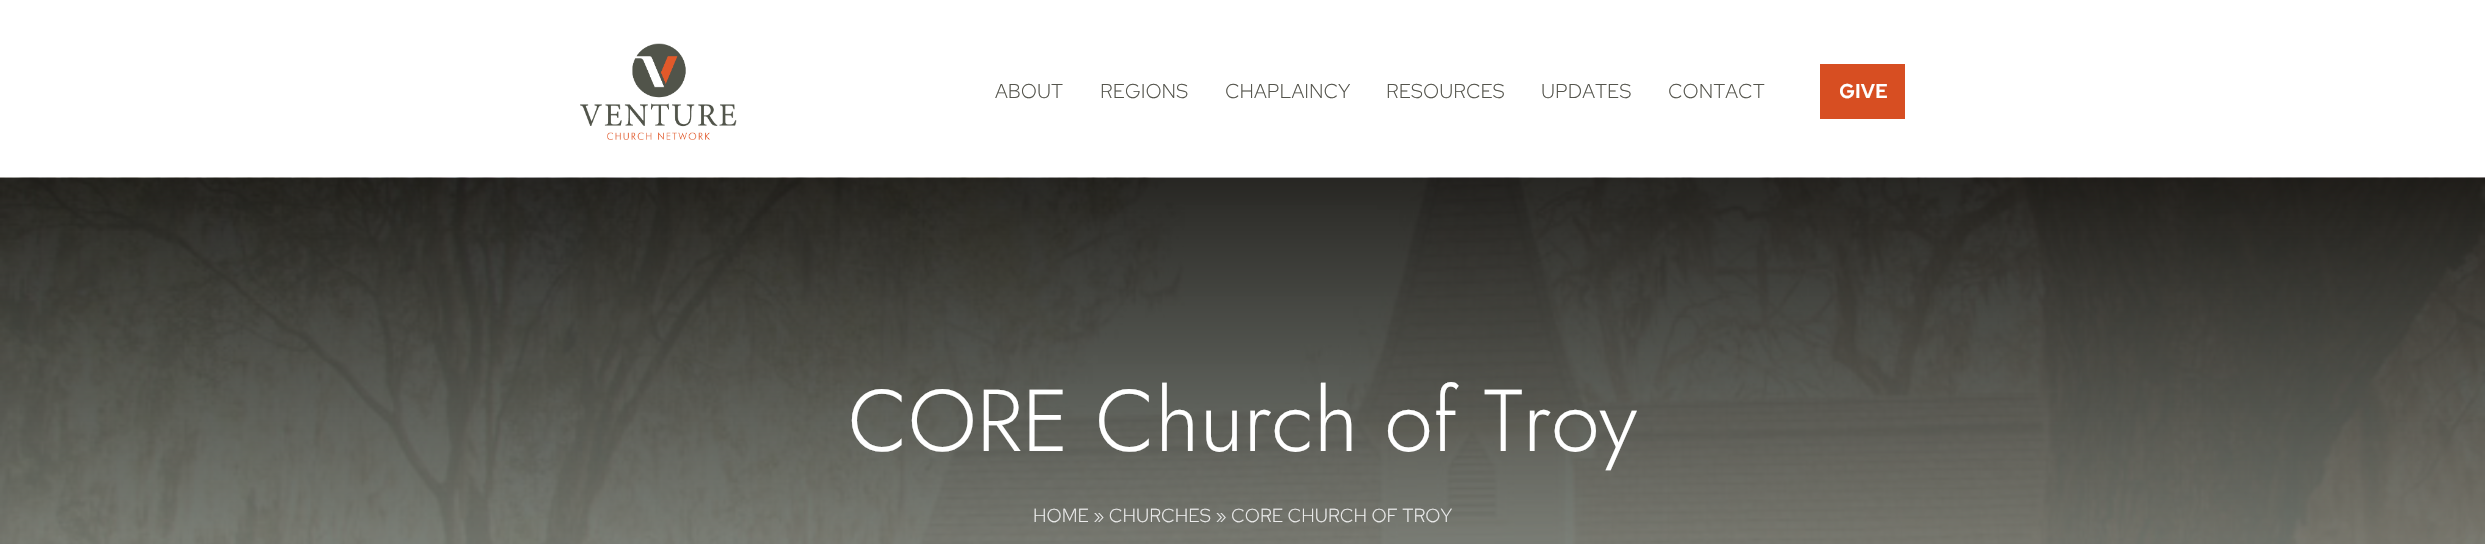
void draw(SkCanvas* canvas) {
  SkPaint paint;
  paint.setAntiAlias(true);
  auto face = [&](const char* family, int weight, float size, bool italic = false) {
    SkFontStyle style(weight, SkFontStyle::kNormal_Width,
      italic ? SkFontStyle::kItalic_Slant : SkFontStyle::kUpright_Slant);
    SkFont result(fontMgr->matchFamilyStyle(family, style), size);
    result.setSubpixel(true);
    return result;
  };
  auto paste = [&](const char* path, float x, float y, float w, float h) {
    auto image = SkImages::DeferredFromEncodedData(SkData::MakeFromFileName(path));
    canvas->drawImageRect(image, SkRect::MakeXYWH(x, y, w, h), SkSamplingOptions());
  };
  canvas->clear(0xffffffff);
  paste("img/1.png", 580, 43, 157, 97);
  paint.setColor(0xffd74e22);
  canvas->drawRect(SkRect::MakeXYWH(1820, 64, 85, 55), paint);
  paste("img/2.png", 0, 177, 2485, 367);
  auto f0 = face("Red Hat Text", 300, 20);
  paint.setColor(0xff54544c);
  {
    const struct { const char* s; float x, y; } items[] = {
      {"ABOUT", 995, 98},
      {"REGIONS", 1100, 98},
      {"CHAPLAINCY", 1225, 98},
      {"RESOURCES", 1386, 98},
      {"UPDATES", 1541, 98},
      {"CONTACT", 1668, 98},
    };
    for (auto [s, x, y] : items) {
      canvas->drawString(s, x, y, f0, paint);
    }
  }
  auto f1 = face("Red Hat Text", 600, 20);
  paint.setColor(0xffffffff);
  canvas->drawString("GIVE", 1839, 98, f1, paint);
  auto f2 = face("Jost", 300, 87.5f);
  canvas->drawString("CORE Church of Troy", 848, 451, f2, paint);
  auto f3 = face("Red Hat Text", 300, 18.75f);
  paint.setColor(0xffededed);
  canvas->drawString("HOME » CHURCHES » CORE CHURCH OF TROY", 1033, 522, f3, paint);
}
